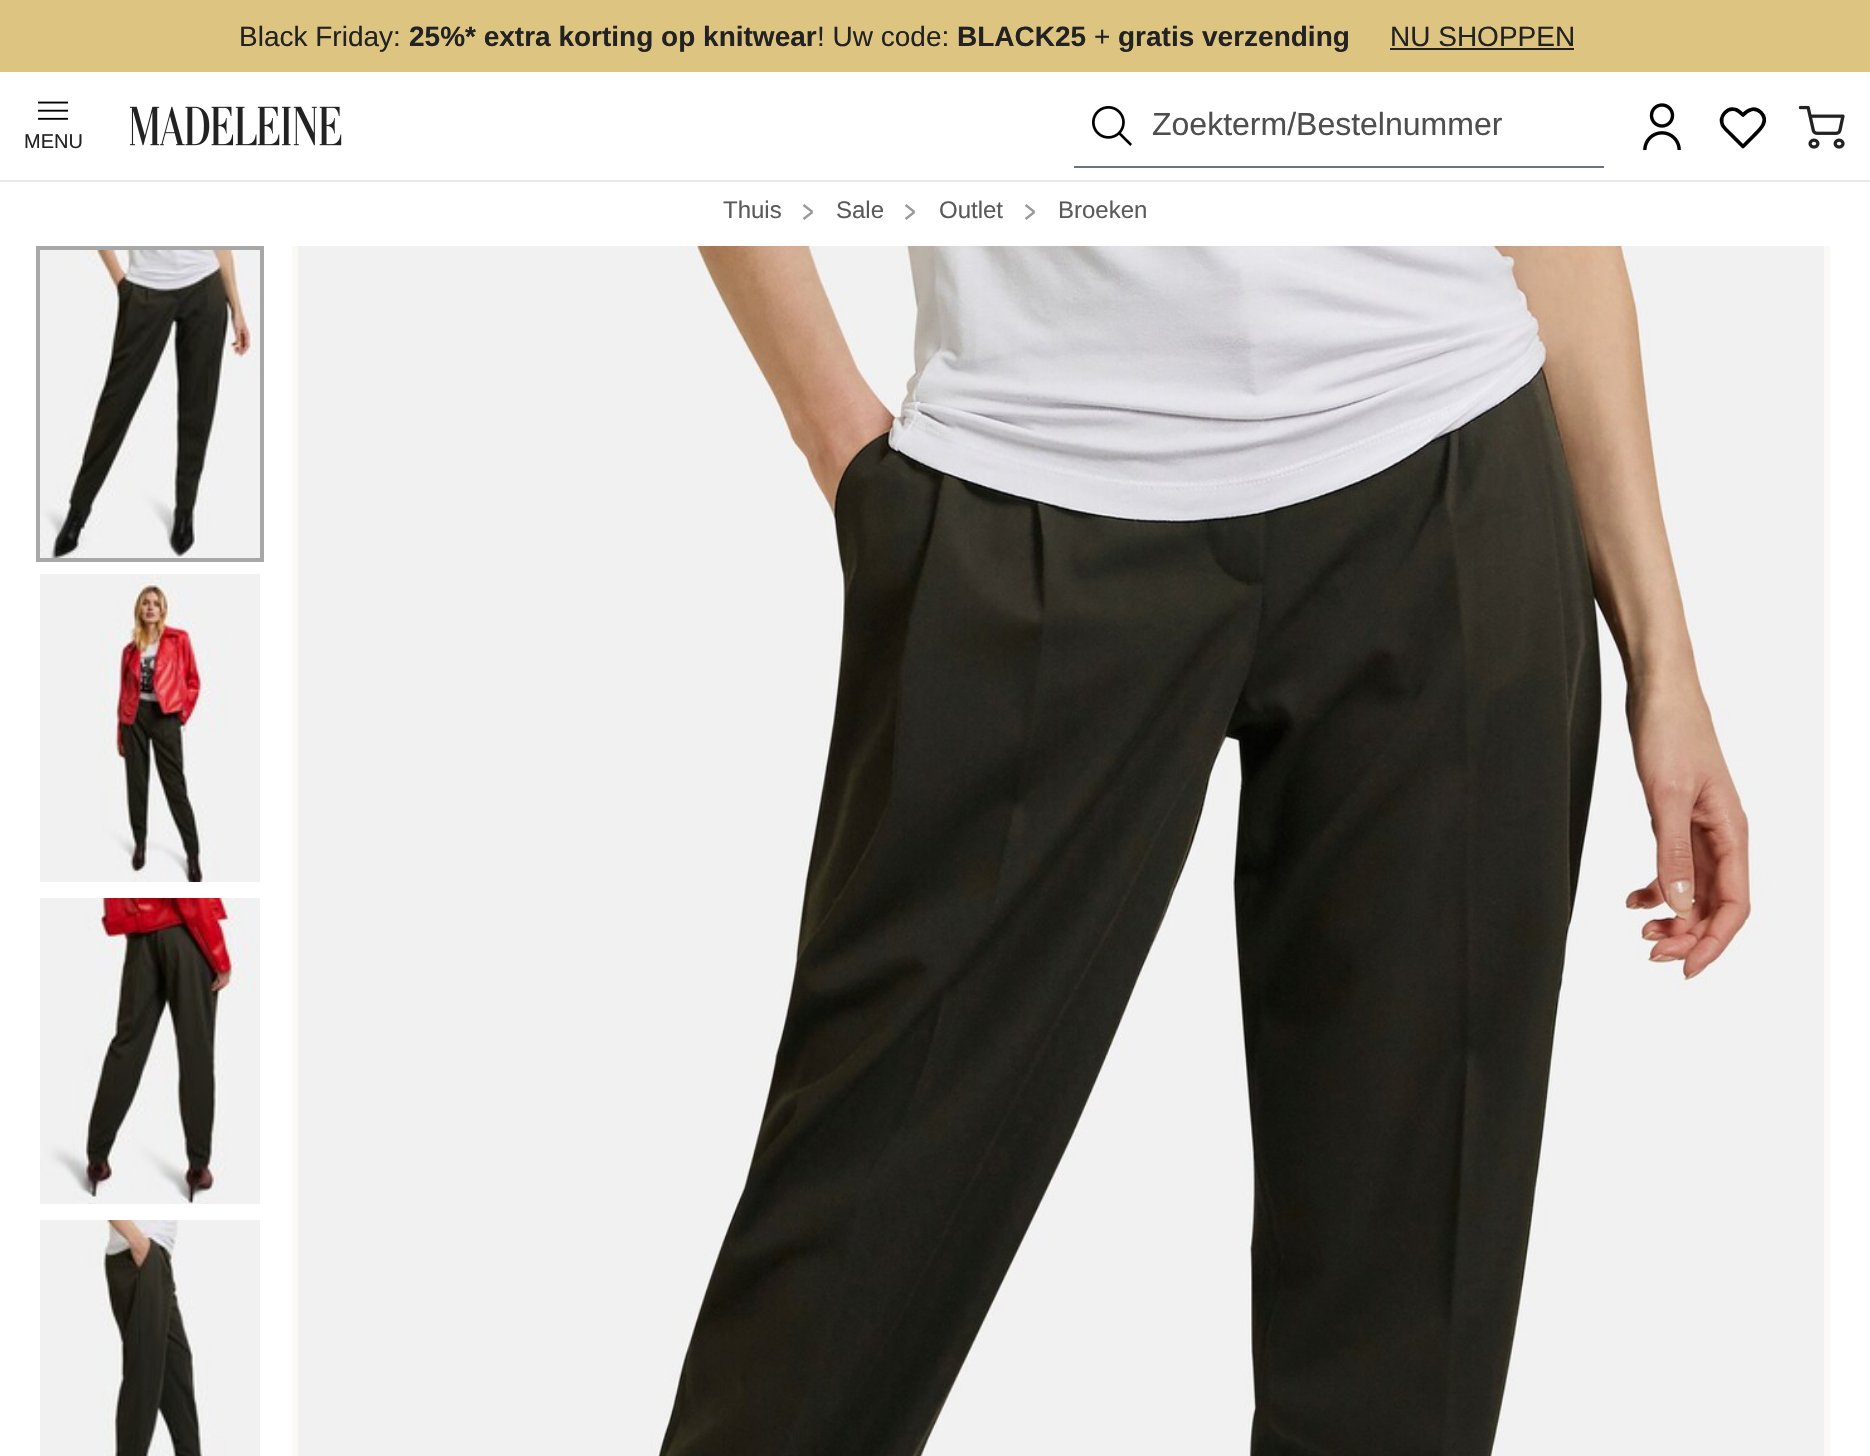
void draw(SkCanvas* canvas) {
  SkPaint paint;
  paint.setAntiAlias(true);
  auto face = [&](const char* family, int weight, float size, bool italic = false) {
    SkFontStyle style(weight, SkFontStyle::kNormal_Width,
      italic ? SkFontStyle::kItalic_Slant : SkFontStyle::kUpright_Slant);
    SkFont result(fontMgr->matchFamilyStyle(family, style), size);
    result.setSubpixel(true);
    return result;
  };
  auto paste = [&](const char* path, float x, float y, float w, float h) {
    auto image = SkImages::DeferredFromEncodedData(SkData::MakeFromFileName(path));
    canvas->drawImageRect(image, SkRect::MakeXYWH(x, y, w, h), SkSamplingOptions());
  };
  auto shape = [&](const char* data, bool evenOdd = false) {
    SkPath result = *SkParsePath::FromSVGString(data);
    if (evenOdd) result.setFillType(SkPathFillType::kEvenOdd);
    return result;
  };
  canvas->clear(0xffffffff);
  {
    const struct { float x, y, w, h; SkColor color; } items[] = {
      {0, 0, 1870, 72, 0xffdec481},
      {1390, 48, 184, 2, 0xff222222},
      {0, 180, 1870, 2, 0xffe9e9e9},
    };
    for (auto [x, y, w, h, color] : items) {
      paint.setColor(color);
      canvas->drawRect(SkRect::MakeXYWH(x, y, w, h), paint);
    }
  }
  paste("img/1.png", 130, 106, 212, 40);
  paste("img/2.png", 1092, 106, 40, 40);
  paint.setColor(0xff6b7280);
  canvas->drawRect(SkRect::MakeXYWH(1074, 166, 530, 2), paint);
  paste("img/3.png", 1643, 103, 38, 47);
  paint.setStroke(true);
  paint.setStrokeWidth(3.7f);
  paint.setStrokeCap(SkPaint::kRound_Cap);
  paint.setStrokeJoin(SkPaint::kRound_Join);
  paint.setColor(0xff000000);
  canvas->drawPath(shape("M1761 112.5C1754.5 106.5 1748 109.5 1743 115C1740.5 112.5 1738.5 110.5 1735.5 109.5C1727 107 1719 116.5 1722.5 125C1724 128 1727 130.5 1729.5 133L1743 146.5L1753.5 136C1759.5 130 1769.5 121.5 1761 112.5"), paint);
  paste("img/4.png", 1798, 105, 47, 44);
  paste("img/5.png", 38, 101, 30, 19);
  paint.setStrokeWidth(2.3f);
  paint.setStrokeCap(SkPaint::kButt_Cap);
  paint.setStrokeJoin(SkPaint::kMiter_Join);
  paint.setColor(0xff999999);
  canvas->drawPath(shape("M810.5 213.5L812.5 212M812.5 212L803.5 205M812.5 212L803.5 219"), paint);
  canvas->drawPath(shape("M912.5 213.5L914.5 212M914.5 212L905.5 205M914.5 212L905.5 219"), paint);
  canvas->drawPath(shape("M1032.5 213.5L1034.5 212M1034.5 212L1025.5 205M1034.5 212L1025.5 219"), paint);
  paint.setStrokeWidth(4);
  paint.setColor(0xffa7a7a7);
  canvas->drawRect(SkRect::MakeXYWH(38, 248, 224, 312), paint);
  paste("img/6.png", 40, 250, 220, 308);
  paste("img/7.png", 40, 574, 220, 308);
  paste("img/8.png", 40, 898, 220, 306);
  paste("img/9.png", 40, 1220, 220, 236);
  paint.setStroke(false);
  paint.setColor(0xfffbf9f5);
  canvas->drawRect(SkRect::MakeXYWH(292, 246, 1538, 1210), paint);
  paste("img/10.png", 298, 246, 1526, 1210);
  auto f0 = face("Liberation Sans", 400, 28);
  paint.setColor(0xff222222);
  canvas->drawString("Black Friday:", 239, 46, f0, paint);
  auto f1 = face("Liberation Sans", 700, 28);
  canvas->drawString("25%* extra korting op knitwear", 409, 46, f1, paint);
  canvas->drawString("! Uw code:", 817, 46, f0, paint);
  canvas->drawString("BLACK25", 957, 46, f1, paint);
  canvas->drawString("+", 1094, 46, f0, paint);
  canvas->drawString("gratis verzending", 1118, 46, f1, paint);
  canvas->drawString("NU SHOPPEN", 1390, 46, f0, paint);
  auto f2 = face("Liberation Sans", 400, 32);
  paint.setColor(0xff4e4e4e);
  canvas->drawString("Zoekterm/Bestelnummer", 1152, 135, f2, paint);
  auto f3 = face("Liberation Sans", 400, 20);
  paint.setColor(0xff222222);
  canvas->drawString("MENU", 24, 148, f3, paint);
  auto f4 = face("Liberation Sans", 400, 24);
  paint.setColor(0xff5a5a5a);
  {
    const struct { const char* s; float x, y; } items[] = {
      {"Thuis", 723, 218},
      {"Sale", 836, 218},
      {"Outlet", 939, 218},
      {"Broeken", 1058, 218},
    };
    for (auto [s, x, y] : items) {
      canvas->drawString(s, x, y, f4, paint);
    }
  }
}
